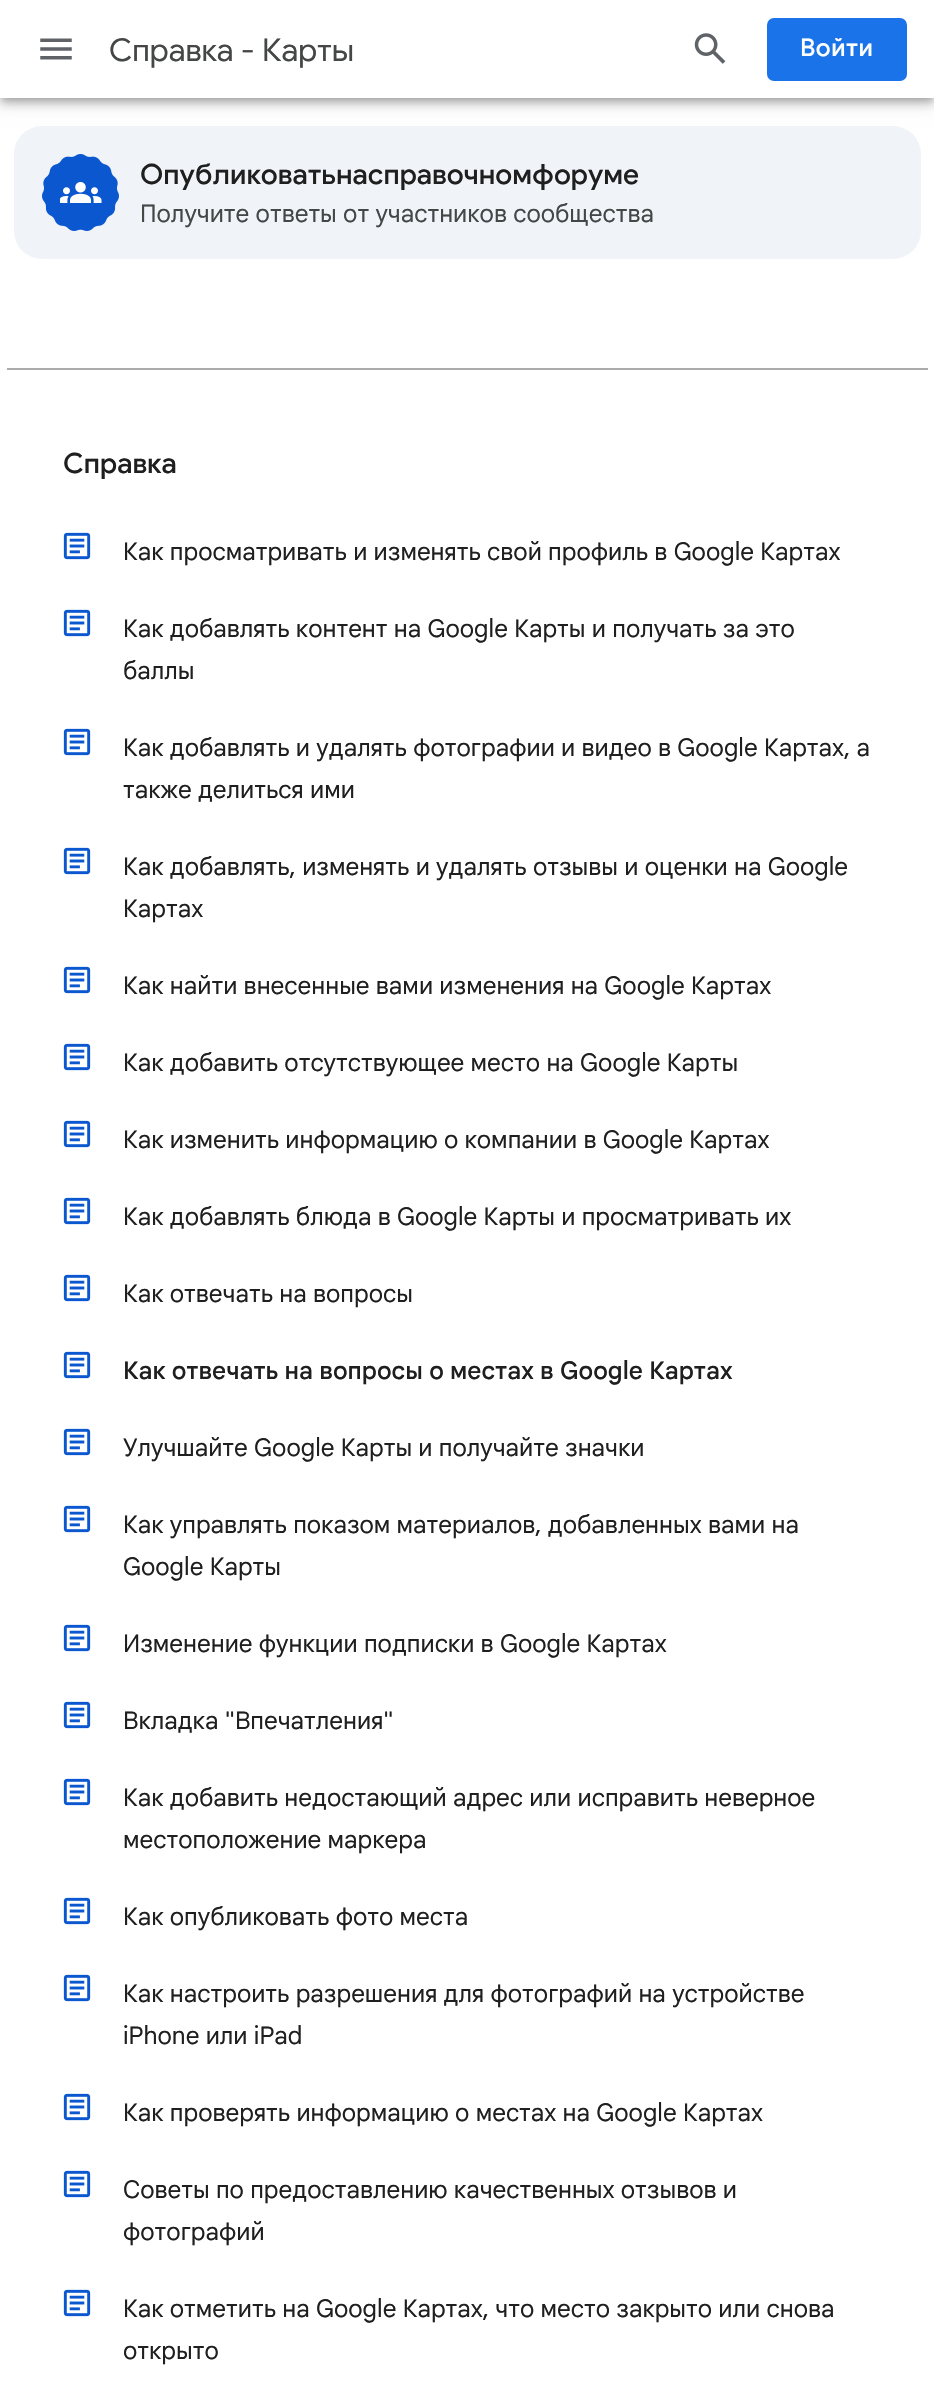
void draw(SkCanvas* canvas) {
  SkPaint paint;
  paint.setAntiAlias(true);
  auto face = [&](const char* family, int weight, float size, bool italic = false) {
    SkFontStyle style(weight, SkFontStyle::kNormal_Width,
      italic ? SkFontStyle::kItalic_Slant : SkFontStyle::kUpright_Slant);
    SkFont result(fontMgr->matchFamilyStyle(family, style), size);
    result.setSubpixel(true);
    return result;
  };
  auto writeSpaced = [&](const char* s, float x, float y, const SkFont& font, const SkPaint& ink, float letter, float word) {
    std::vector<SkGlyphID> glyphs(font.countText(s, strlen(s), SkTextEncoding::kUTF8));
    std::vector<float> xs(glyphs.size());
    font.textToGlyphs(s, strlen(s), SkTextEncoding::kUTF8, glyphs);
    font.getXPos(glyphs, xs, x);
    float extra = 0;
    for (size_t i = 0; i < glyphs.size(); i++) {
      xs[i] += extra;
      extra += letter + word * (glyphs[i] == font.unicharToGlyph(' '));
    }
    canvas->drawTextBlob(SkTextBlob::MakeFromPosHGlyphs(glyphs, xs, y, font), 0, 0, ink);
  };
  auto paste = [&](const char* path, float x, float y, float w, float h) {
    auto image = SkImages::DeferredFromEncodedData(SkData::MakeFromFileName(path));
    canvas->drawImageRect(image, SkRect::MakeXYWH(x, y, w, h), SkSamplingOptions());
  };
  canvas->clear(0xffffffff);
  paint.setColor(0x33000000);
  paint.setMaskFilter(SkMaskFilter::MakeBlur(kNormal_SkBlurStyle, 3.5f));
  canvas->drawRect(SkRect::MakeXYWH(2, 5, 931, 95), paint);
  paint.setMaskFilter(nullptr);
  paint.setColor(0xfff0f4f9);
  canvas->drawRoundRect(SkRect::MakeXYWH(14, 126, 907, 133), 28, 28, paint);
  paint.setColor(0x1f000000);
  paint.setMaskFilter(SkMaskFilter::MakeBlur(kNormal_SkBlurStyle, 9));
  canvas->drawRect(SkRect::MakeXYWH(0, 2, 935, 98), paint);
  paint.setMaskFilter(nullptr);
  paint.setColor(0x24000000);
  paint.setMaskFilter(SkMaskFilter::MakeBlur(kNormal_SkBlurStyle, 4.5f));
  canvas->drawRect(SkRect::MakeXYWH(0, 7, 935, 98), paint);
  paint.setMaskFilter(nullptr);
  paint.setColor(0xffffffff);
  canvas->drawRect(SkRect::MakeXYWH(0, 0, 934, 98), paint);
  paste("img/1.png", 40, 38, 32, 22);
  paste("img/2.png", 694, 33, 32, 31);
  paint.setColor(0xff1a73e8);
  canvas->drawRoundRect(SkRect::MakeXYWH(767, 18, 140, 63), 7, 7, paint);
  paste("img/3.png", 42, 154, 77, 77);
  paste("img/4.png", 60, 182, 42, 21);
  paint.setColor(0xffa9acaa);
  canvas->drawRect(SkRect::MakeXYWH(7, 368, 921, 2), paint);
  paste("img/5.png", 63, 532, 28, 28);
  paste("img/5.png", 63, 609, 28, 28);
  paste("img/5.png", 63, 728, 28, 28);
  paste("img/5.png", 63, 847, 28, 28);
  paste("img/5.png", 63, 966, 28, 28);
  paste("img/5.png", 63, 1043, 28, 28);
  paste("img/5.png", 63, 1120, 28, 28);
  paste("img/5.png", 63, 1197, 28, 28);
  paste("img/5.png", 63, 1274, 28, 28);
  paste("img/5.png", 63, 1351, 28, 28);
  paste("img/5.png", 63, 1428, 28, 28);
  paste("img/5.png", 63, 1505, 28, 28);
  paste("img/5.png", 63, 1624, 28, 28);
  paste("img/5.png", 63, 1701, 28, 28);
  paste("img/5.png", 63, 1778, 28, 28);
  paste("img/5.png", 63, 1897, 28, 28);
  paste("img/5.png", 63, 1974, 28, 28);
  paste("img/5.png", 63, 2093, 28, 28);
  paste("img/5.png", 63, 2170, 28, 28);
  paste("img/5.png", 63, 2289, 28, 28);
  auto f0 = face("Google Sans", 400, 31.5f);
  paint.setColor(0xff444746);
  canvas->drawString("Cправка - Карты", 109, 61, f0, paint);
  auto f1 = face("Google Sans", 500, 24.5f);
  paint.setColor(0xffffffff);
  writeSpaced("Войти", 800, 56, f1, paint, 0.5f, 0);
  auto f2 = face("Google Sans", 500, 28);
  paint.setColor(0xff1f1f1f);
  canvas->drawString("Опубликовать на справочном форуме", 140, 184, f2, paint);
  auto f3 = face("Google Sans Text", 400, 24.5f);
  paint.setColor(0xff444746);
  canvas->drawString("Получите ответы от участников сообщества", 140, 222, f3, paint);
  paint.setColor(0xff1f1f1f);
  canvas->drawString("Справка", 63, 473, f2, paint);
  {
    const struct { const char* s; float x, y; } items[] = {
      {"Как просматривать и изменять свой профиль в Google Картах", 123, 560},
      {"Как добавлять контент на Google Карты и получать за это", 123, 637},
      {"баллы", 123, 679},
      {"Как добавлять и удалять фотографии и видео в Google Картах, а", 123, 756},
      {"также делиться ими", 123, 798},
      {"Как добавлять, изменять и удалять отзывы и оценки на Google", 123, 875},
      {"Картах", 123, 917},
      {"Как найти внесенные вами изменения на Google Картах", 123, 994},
      {"Как добавить отсутствующее место на Google Карты", 123, 1071},
      {"Как изменить информацию о компании в Google Картах", 123, 1148},
      {"Как добавлять блюда в Google Карты и просматривать их", 123, 1225},
      {"Как отвечать на вопросы", 123, 1302},
    };
    for (auto [s, x, y] : items) {
      canvas->drawString(s, x, y, f3, paint);
    }
  }
  auto f4 = face("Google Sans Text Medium", 500, 24.5f);
  canvas->drawString("Как отвечать на вопросы о местах в Google Картах", 123, 1379, f4, paint);
  {
    const struct { const char* s; float x, y; } items[] = {
      {"Улучшайте Google Карты и получайте значки", 123, 1456},
      {"Как управлять показом материалов, добавленных вами на", 123, 1533},
      {"Google Карты", 123, 1575},
      {"Изменение функции подписки в Google Картах", 123, 1652},
      {"Вкладка \"Впечатления\"", 123, 1729},
      {"Как добавить недостающий адрес или исправить неверное", 123, 1806},
      {"местоположение маркера", 123, 1848},
      {"Как опубликовать фото места", 123, 1925},
      {"Как настроить разрешения для фотографий на устройстве", 123, 2002},
      {"iPhone или iPad", 123, 2044},
      {"Как проверять информацию о местах на Google Картах", 123, 2121},
      {"Советы по предоставлению качественных отзывов и", 123, 2198},
      {"фотографий", 123, 2240},
      {"Как отметить на Google Картах, что место закрыто или снова", 123, 2317},
      {"открыто", 123, 2359},
    };
    for (auto [s, x, y] : items) {
      canvas->drawString(s, x, y, f3, paint);
    }
  }
}
